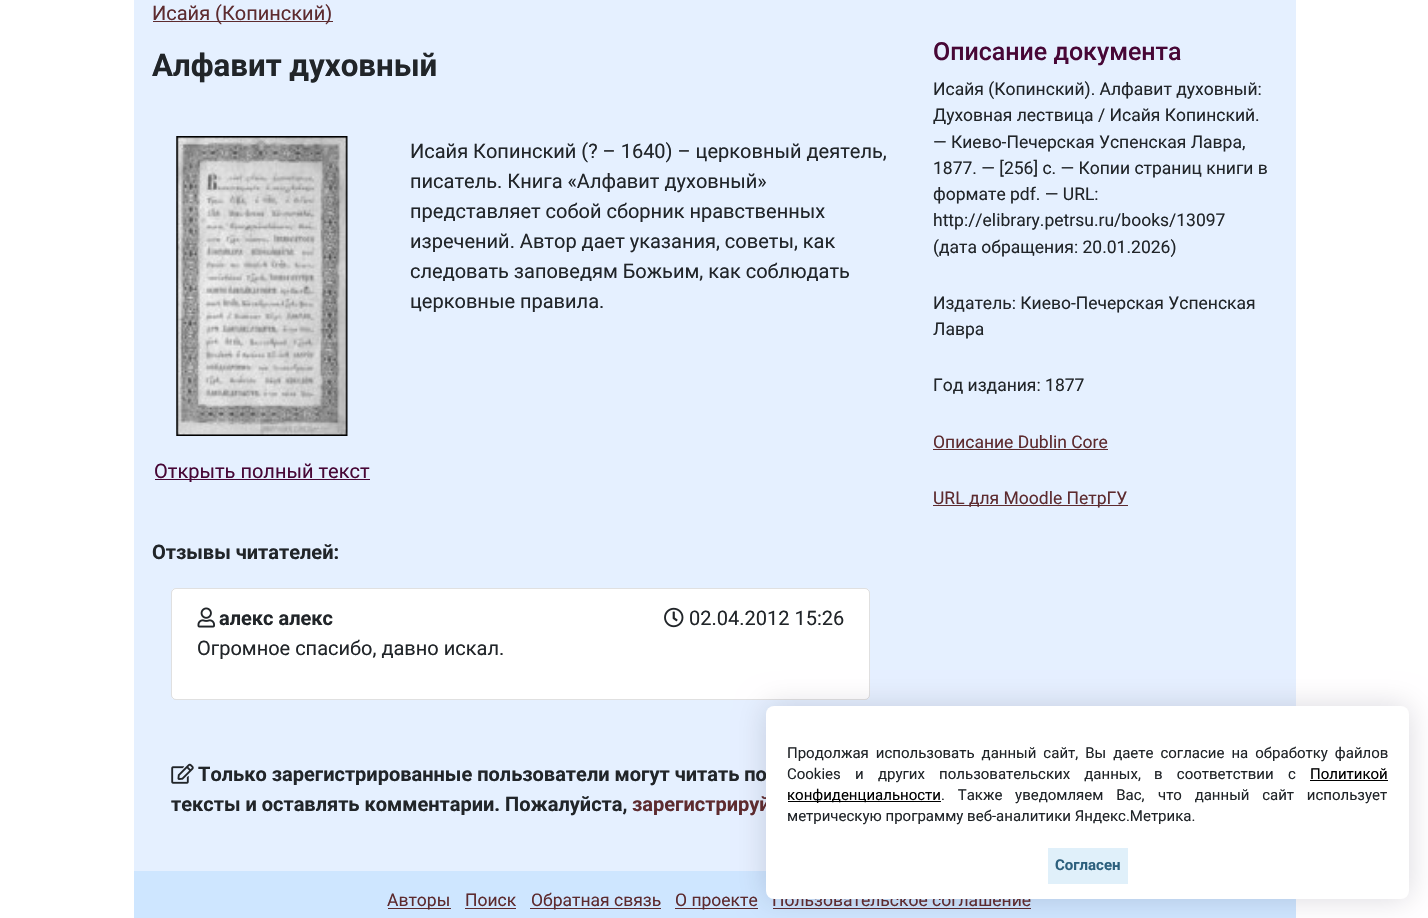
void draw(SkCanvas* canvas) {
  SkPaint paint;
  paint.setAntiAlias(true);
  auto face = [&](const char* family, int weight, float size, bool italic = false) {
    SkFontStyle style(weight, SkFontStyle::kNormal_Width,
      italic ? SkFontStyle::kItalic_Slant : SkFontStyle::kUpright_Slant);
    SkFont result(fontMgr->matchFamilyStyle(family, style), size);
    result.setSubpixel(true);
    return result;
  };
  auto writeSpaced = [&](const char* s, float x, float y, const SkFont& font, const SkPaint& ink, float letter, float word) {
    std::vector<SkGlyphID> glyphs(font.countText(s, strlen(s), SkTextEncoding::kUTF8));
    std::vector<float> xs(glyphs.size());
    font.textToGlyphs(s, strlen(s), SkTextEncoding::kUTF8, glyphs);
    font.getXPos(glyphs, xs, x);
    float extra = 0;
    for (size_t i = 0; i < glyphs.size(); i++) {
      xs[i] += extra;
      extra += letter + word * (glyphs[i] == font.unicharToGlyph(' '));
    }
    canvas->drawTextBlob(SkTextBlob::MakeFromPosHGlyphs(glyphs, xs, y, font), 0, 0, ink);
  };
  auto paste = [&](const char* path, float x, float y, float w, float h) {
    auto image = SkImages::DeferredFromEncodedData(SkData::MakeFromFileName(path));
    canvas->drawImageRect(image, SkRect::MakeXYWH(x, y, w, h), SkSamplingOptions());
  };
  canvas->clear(0xffffffff);
  paint.setColor(0xffe5f0ff);
  canvas->drawRect(SkRect::MakeXYWH(134, 0, 1162, 871), paint);
  paint.setColor(0xff5d2b2f);
  canvas->drawRect(SkRect::MakeXYWH(153, 21, 180, 1), paint);
  paste("img/1.png", 176, 136, 172, 300);
  paint.setColor(0xff470736);
  canvas->drawRect(SkRect::MakeXYWH(155, 479, 215, 1), paint);
  paint.setColor(0xffffffff);
  canvas->drawRoundRect(SkRect::MakeXYWH(171, 588, 699, 112), 5, 5, paint);
  paint.setStroke(true);
  paint.setStrokeWidth(1);
  paint.setColor(0x1f000000);
  canvas->drawRoundRect(SkRect::MakeXYWH(171.5f, 588.5f, 698, 111), 4.5f, 4.5f, paint);
  paste("img/2.png", 197, 607, 18, 21);
  paste("img/3.png", 664, 607, 20, 21);
  paste("img/4.png", 171, 763, 23, 21);
  paint.setStroke(false);
  {
    const struct { float x, y, w, h; SkColor color; } items[] = {
      {933, 449, 175, 1, 0xff5d2b2f},
      {933, 505, 195, 1, 0xff5d2b2f},
      {134, 871, 1162, 47, 0xffcee6ff},
      {675, 908, 83, 1, 0xff5d2b2f},
      {773, 908, 258, 1, 0xff5d2b2f},
    };
    for (auto [x, y, w, h, color] : items) {
      paint.setColor(color);
      canvas->drawRect(SkRect::MakeXYWH(x, y, w, h), paint);
    }
  }
  paint.setColor(0x2605001f);
  paint.setMaskFilter(SkMaskFilter::MakeBlur(kNormal_SkBlurStyle, 15));
  canvas->drawRoundRect(SkRect::MakeXYWH(766, 706, 643, 193), 8, 8, paint);
  paint.setMaskFilter(nullptr);
  {
    const struct { float x, y, w, h; SkColor color; } items[] = {
      {388, 908, 63, 1, 0xff5d2b2f},
      {465, 908, 51, 1, 0xff5d2b2f},
      {530, 908, 131, 1, 0xff5d2b2f},
    };
    for (auto [x, y, w, h, color] : items) {
      paint.setColor(color);
      canvas->drawRect(SkRect::MakeXYWH(x, y, w, h), paint);
    }
  }
  auto f0 = face("Roboto", 400, 20);
  canvas->drawString("Исайя (Копинский)", 152, 20, f0, paint);
  auto f1 = face("Roboto", 700, 31.25f);
  paint.setColor(0xff212529);
  canvas->drawString("Алфавит духовный", 152, 76, f1, paint);
  {
    const struct { const char* s; float x, y; } items[] = {
      {"Исайя Копинский (? – 1640) – церковный деятель,", 410, 158},
      {"писатель. Книга «Алфавит духовный»", 410, 188},
      {"представляет собой сборник нравственных", 410, 218},
      {"изречений. Автор дает указания, советы, как", 410, 248},
      {"следовать заповедям Божьим, как соблюдать", 410, 278},
      {"церковные правила.", 410, 308},
    };
    for (auto [s, x, y] : items) {
      canvas->drawString(s, x, y, f0, paint);
    }
  }
  paint.setColor(0xff470736);
  canvas->drawString("Открыть полный текст", 154, 478, f0, paint);
  auto f2 = face("Roboto", 700, 20);
  paint.setColor(0xff212529);
  canvas->drawString("Отзывы читателей:", 152, 559, f2, paint);
  canvas->drawString("алекс алекс", 219, 625, f2, paint);
  canvas->drawString("02.04.2012 15:26", 689, 625, f0, paint);
  canvas->drawString("Огромное спасибо, давно искал.", 197, 655, f0, paint);
  canvas->drawString("Только зарегистрированные пользователи могут читать по", 198, 781, f2, paint);
  canvas->drawString("тексты и оставлять комментарии. Пожалуйста,", 171, 811, f2, paint);
  paint.setColor(0xff5d2b2f);
  canvas->drawString("зарегистрируй", 632, 811, f2, paint);
  auto f3 = face("Roboto", 500, 25);
  paint.setColor(0xff470736);
  canvas->drawString("Описание документа", 933, 60, f3, paint);
  auto f4 = face("Roboto", 400, 17.5f);
  paint.setColor(0xff212529);
  {
    const struct { const char* s; float x, y; } items[] = {
      {"Исайя (Копинский). Алфавит духовный:", 933, 95},
      {"Духовная лествица / Исайя Копинский.", 933, 121},
      {"— Киево-Печерская Успенская Лавра,", 933, 148},
      {"1877. — [256] с. — Копии страниц книги в", 933, 174},
      {"формате pdf. — URL:", 933, 200},
      {"http://elibrary.petrsu.ru/books/13097", 933, 226},
      {"(дата обращения: 20.01.2026)", 933, 253},
      {"Издатель: Киево-Печерская Успенская", 933, 309},
      {"Лавра", 933, 335},
      {"Год издания: 1877", 933, 391},
    };
    for (auto [s, x, y] : items) {
      canvas->drawString(s, x, y, f4, paint);
    }
  }
  paint.setColor(0xff5d2b2f);
  {
    const struct { const char* s; float x, y; } items[] = {
      {"Описание Dublin Core", 933, 448},
      {"URL для Moodle ПетрГУ", 933, 504},
      {"Авторы", 387, 906},
      {"Поиск", 465, 906},
      {"Обратная связь", 531, 906},
      {"О проекте", 675, 906},
      {"Пользовательское соглашение", 772, 906},
    };
    for (auto [s, x, y] : items) {
      canvas->drawString(s, x, y, f4, paint);
    }
  }
  paint.setColor(0xffffffff);
  canvas->drawRoundRect(SkRect::MakeXYWH(766, 706, 643, 193), 8, 8, paint);
  paint.setColor(0xffe0f0fa);
  canvas->drawRect(SkRect::MakeXYWH(1048, 848, 80, 36), paint);
  auto f5 = face("Roboto", 700, 15);
  paint.setColor(0xff2d607d);
  canvas->drawString("Согласен", 1055, 870, f5, paint);
  auto f6 = face("Roboto", 400, 15);
  paint.setColor(0xff212529);
  canvas->drawString("метрическую программу веб-аналитики Яндекс.Метрика.", 787, 821, f6, paint);
  writeSpaced("что данный сайт использует", 1158, 800, f6, paint, 0, 9);
  writeSpaced(". Также уведомляем Вас,", 941, 800, f6, paint, 0, 9);
  paint.setColor(0xff000000);
  canvas->drawRect(SkRect::MakeXYWH(788, 801, 153, 1), paint);
  canvas->drawString("конфиденциальности", 787, 800, f6, paint);
  canvas->drawString("Политикой", 1310, 779, f6, paint);
  canvas->drawRect(SkRect::MakeXYWH(1310, 780, 78, 1), paint);
  paint.setColor(0xff212529);
  writeSpaced("в соответствии с", 1154, 779, f6, paint, 0, 10.5f);
  writeSpaced("Cookies и других пользовательских данных,", 787, 779, f6, paint, 0, 10.5f);
  writeSpaced("Продолжая использовать данный сайт, Вы даете согласие на обработку файлов", 787, 758, f6, paint, 0, 3.25f);
}
